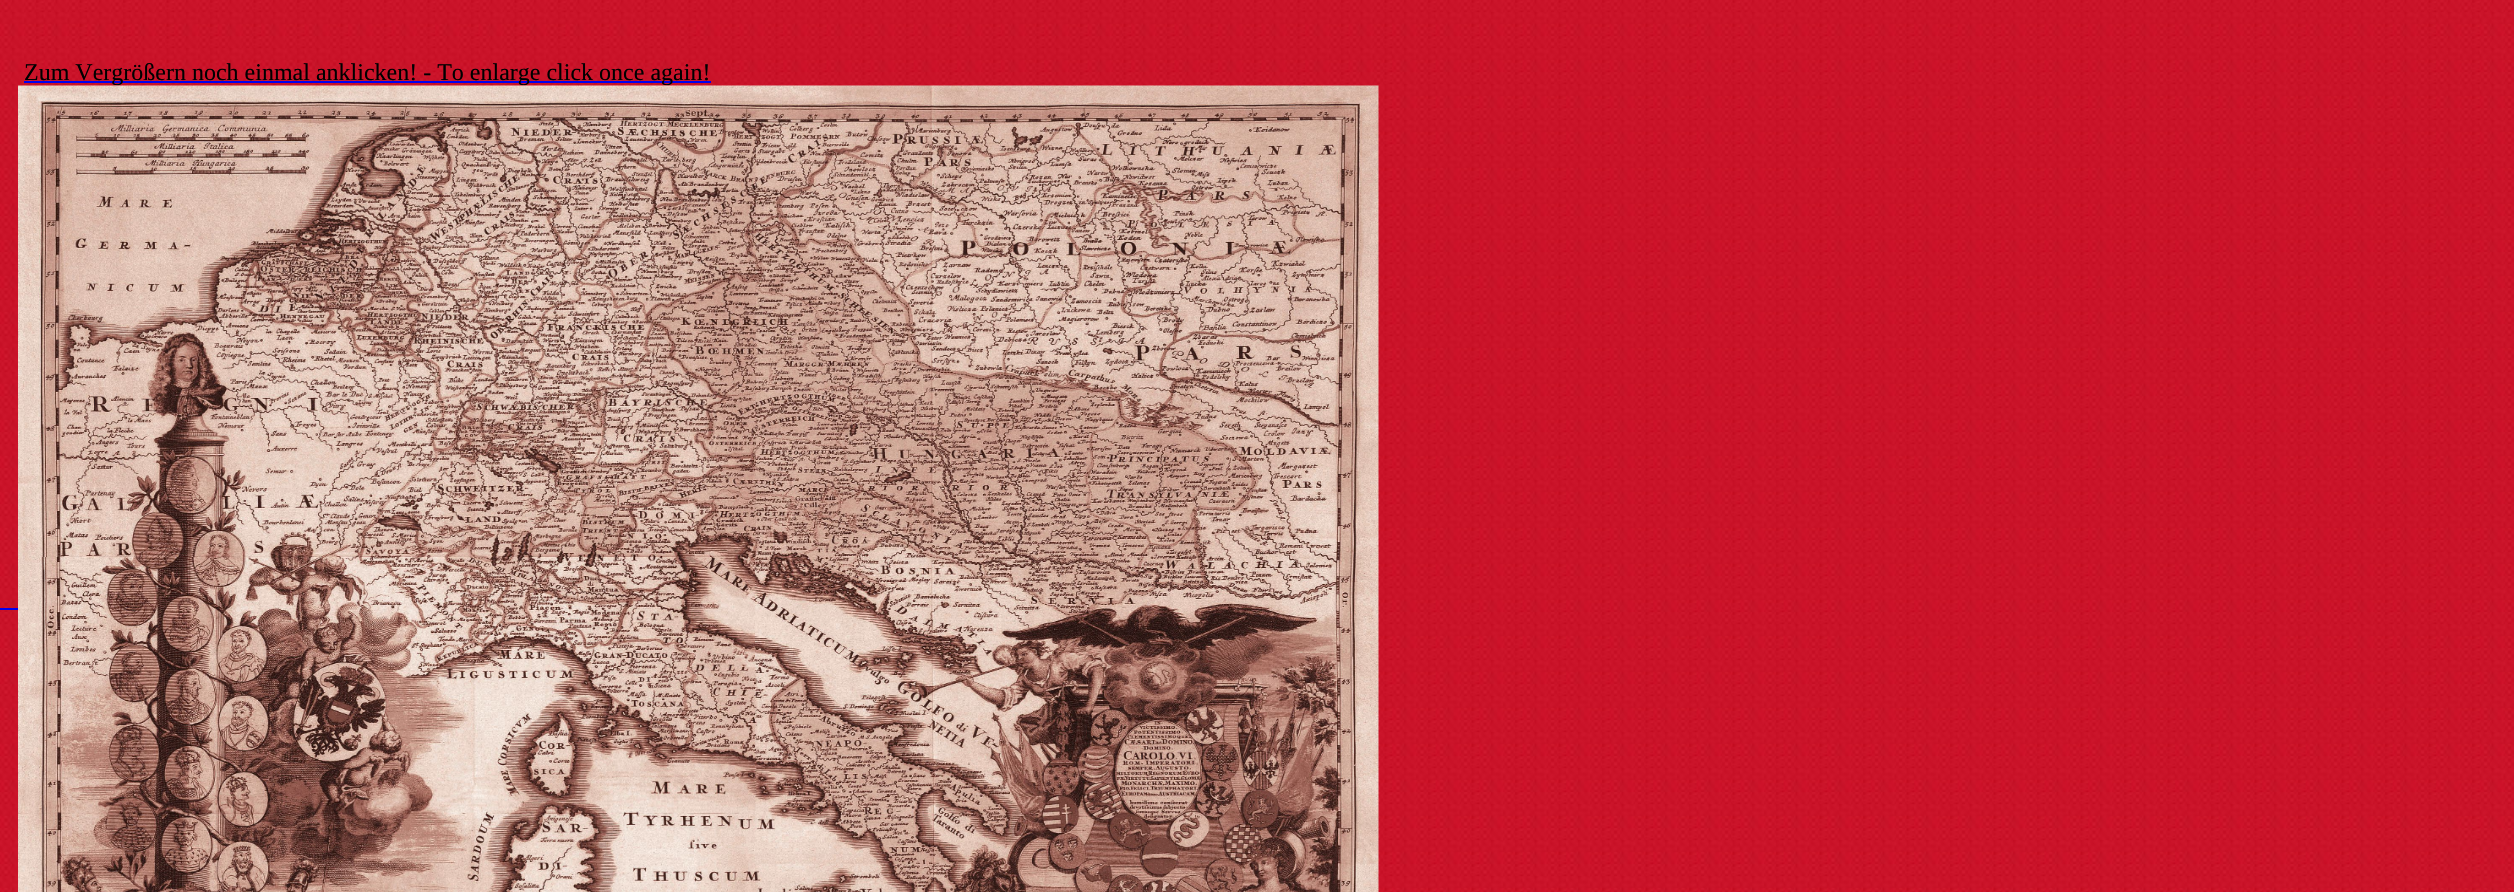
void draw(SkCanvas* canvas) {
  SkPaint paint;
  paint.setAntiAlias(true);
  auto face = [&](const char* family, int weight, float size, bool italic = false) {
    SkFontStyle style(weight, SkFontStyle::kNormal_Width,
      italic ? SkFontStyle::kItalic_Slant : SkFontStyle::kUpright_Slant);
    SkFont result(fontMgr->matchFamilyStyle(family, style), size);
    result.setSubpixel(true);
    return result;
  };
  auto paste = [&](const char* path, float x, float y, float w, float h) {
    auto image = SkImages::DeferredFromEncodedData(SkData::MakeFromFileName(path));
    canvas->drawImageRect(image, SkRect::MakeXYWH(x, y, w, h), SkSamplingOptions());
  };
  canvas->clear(0xffffffff);
  paste("img/1.png", 0, 0, 2514, 892);
  paint.setColor(0xff0000ee);
  canvas->drawRect(SkRect::MakeXYWH(24, 81, 687, 2), paint);
  canvas->drawRect(SkRect::MakeXYWH(0, 608, 18, 2), paint);
  auto f0 = face("Liberation Serif", 400, 24);
  paint.setColor(0xff000000);
  canvas->drawString("Zum Vergrößern noch einmal anklicken! - To enlarge click once again!", 24, 80, f0, paint);
  paste("img/2.png", 18, 85, 1361, 807);
}
